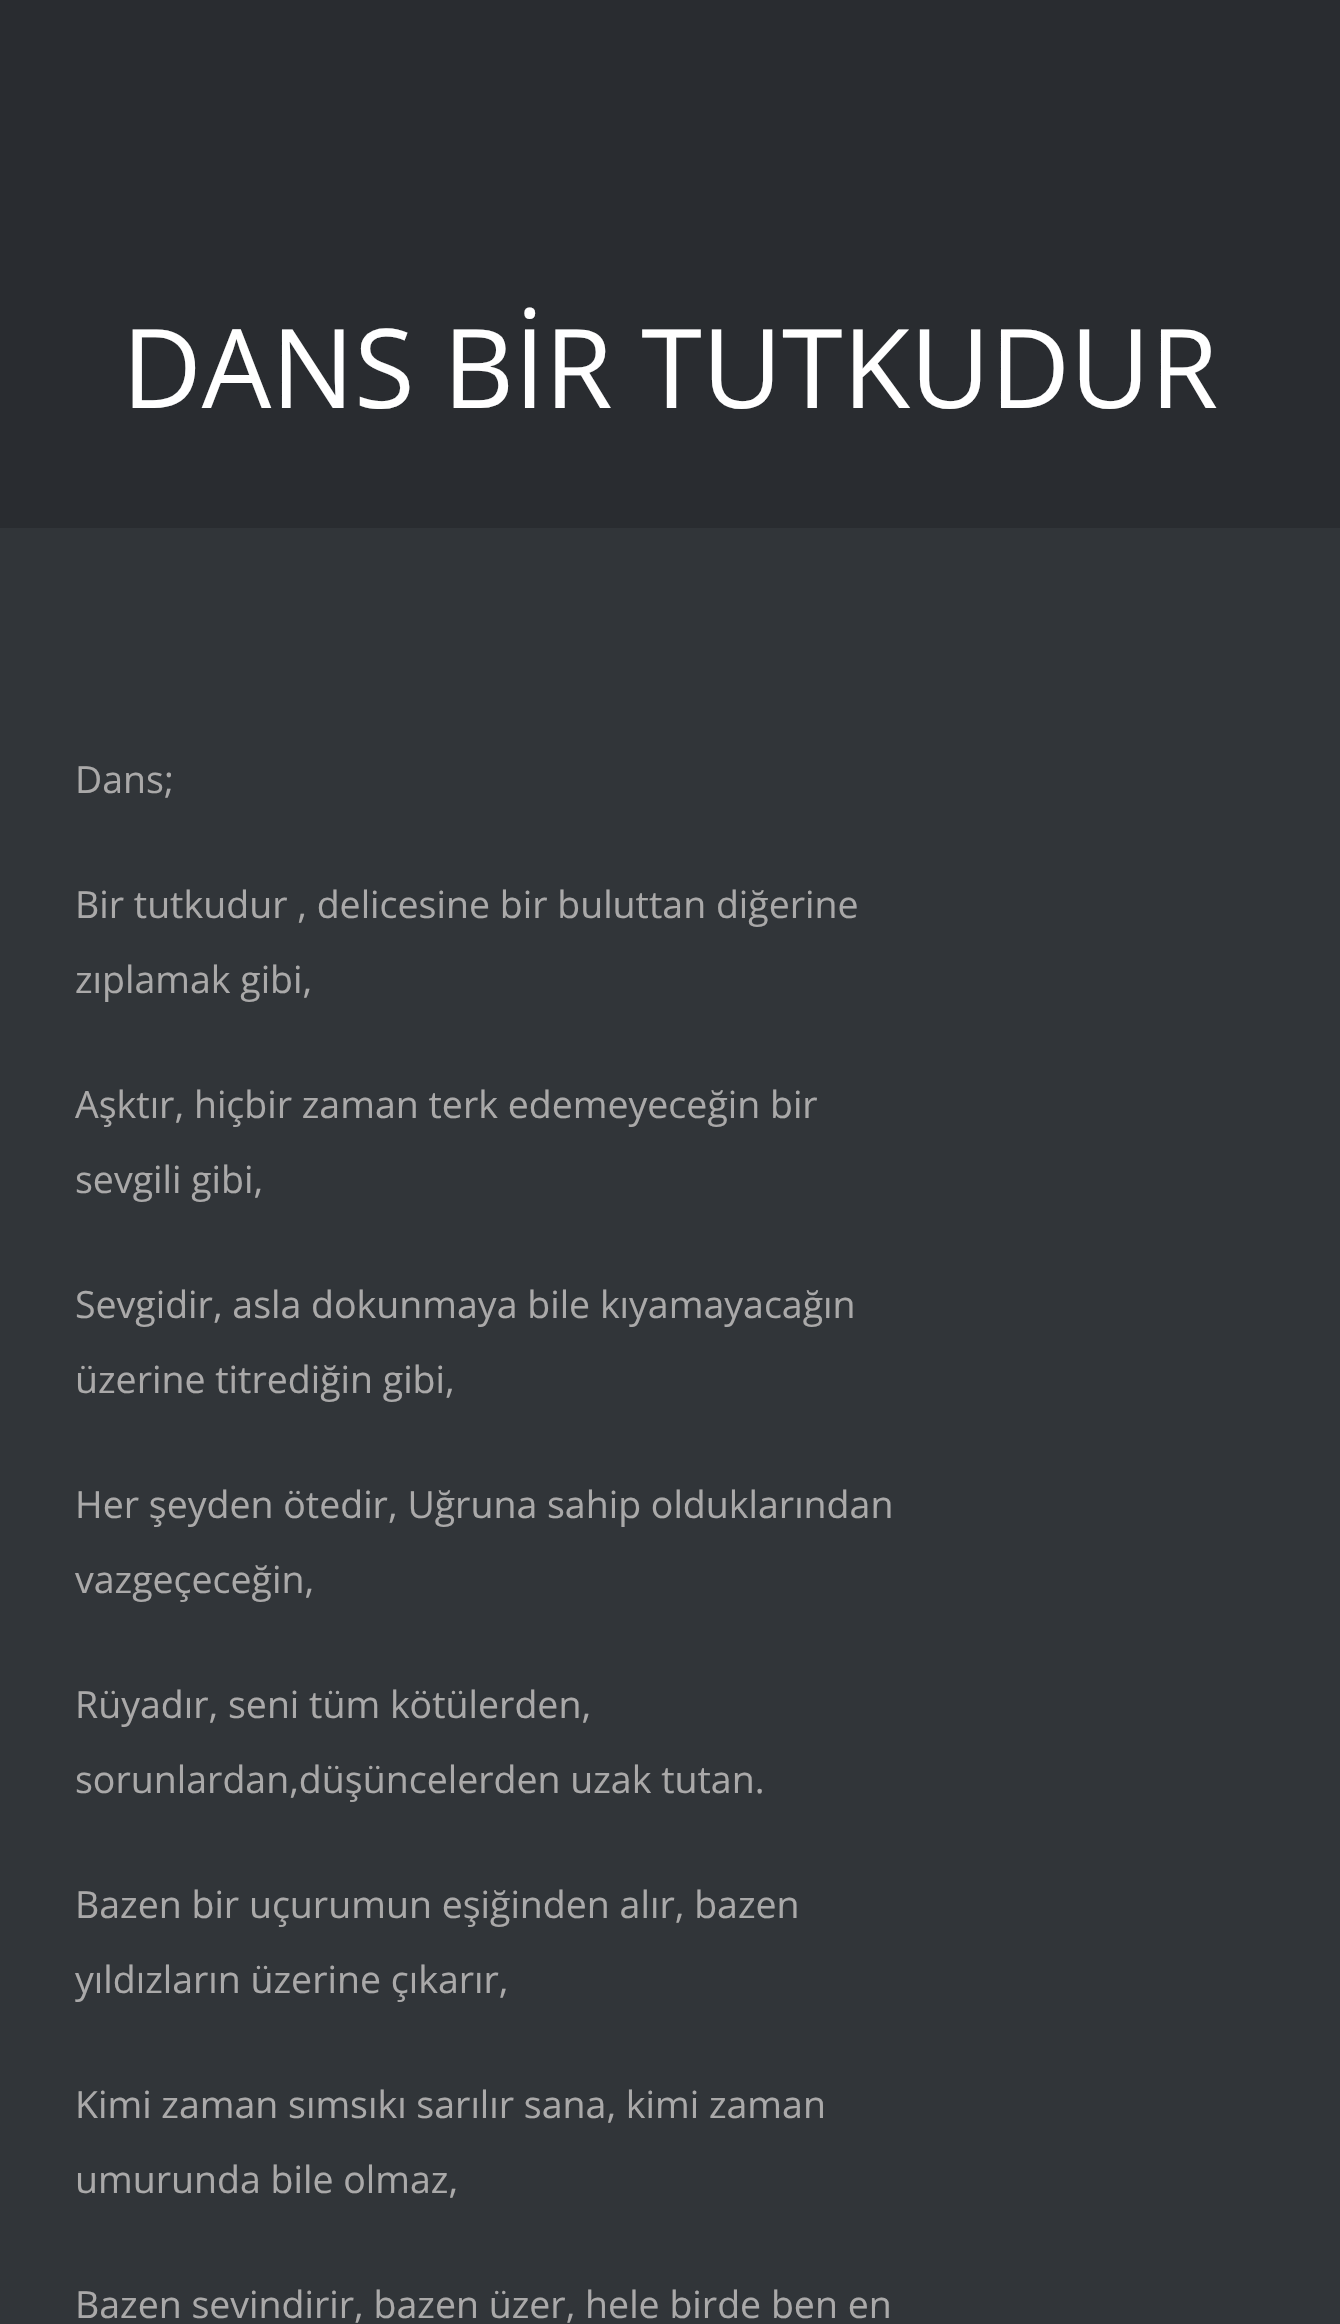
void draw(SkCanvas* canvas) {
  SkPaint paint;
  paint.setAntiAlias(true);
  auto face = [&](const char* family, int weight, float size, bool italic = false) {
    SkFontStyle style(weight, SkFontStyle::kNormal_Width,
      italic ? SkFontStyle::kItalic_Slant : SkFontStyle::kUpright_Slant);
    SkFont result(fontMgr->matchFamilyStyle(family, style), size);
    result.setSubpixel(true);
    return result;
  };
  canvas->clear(0xff313539);
  paint.setColor(0xff292c30);
  canvas->drawRect(SkRect::MakeXYWH(0, 0, 1340, 528), paint);
  auto f0 = face("Open Sans", 400, 110);
  paint.setColor(0xffffffff);
  canvas->drawString("DANS BİR TUTKUDUR", 122, 408, f0, paint);
  auto f1 = face("Open Sans", 400, 37.5f);
  paint.setColor(0xffaaa9a9);
  {
    const struct { const char* s; float x, y; } items[] = {
      {"Dans;", 75, 793},
      {"Bir tutkudur , delicesine bir buluttan diğerine", 75, 918},
      {"zıplamak gibi,", 75, 993},
      {"Aşktır, hiçbir zaman terk edemeyeceğin bir", 75, 1118},
      {"sevgili gibi,", 75, 1193},
      {"Sevgidir, asla dokunmaya bile kıyamayacağın", 75, 1318},
      {"üzerine titrediğin gibi,", 75, 1393},
      {"Her şeyden ötedir, Uğruna sahip olduklarından", 75, 1518},
      {"vazgeçeceğin,", 75, 1593},
      {"Rüyadır, seni tüm kötülerden,", 75, 1718},
      {"sorunlardan,düşüncelerden uzak tutan.", 75, 1793},
      {"Bazen bir uçurumun eşiğinden alır, bazen", 75, 1918},
      {"yıldızların üzerine çıkarır,", 75, 1993},
      {"Kimi zaman sımsıkı sarılır sana, kimi zaman", 75, 2118},
      {"umurunda bile olmaz,", 75, 2193},
      {"Bazen sevindirir, bazen üzer, hele birde ben en", 75, 2318},
    };
    for (auto [s, x, y] : items) {
      canvas->drawString(s, x, y, f1, paint);
    }
  }
}
